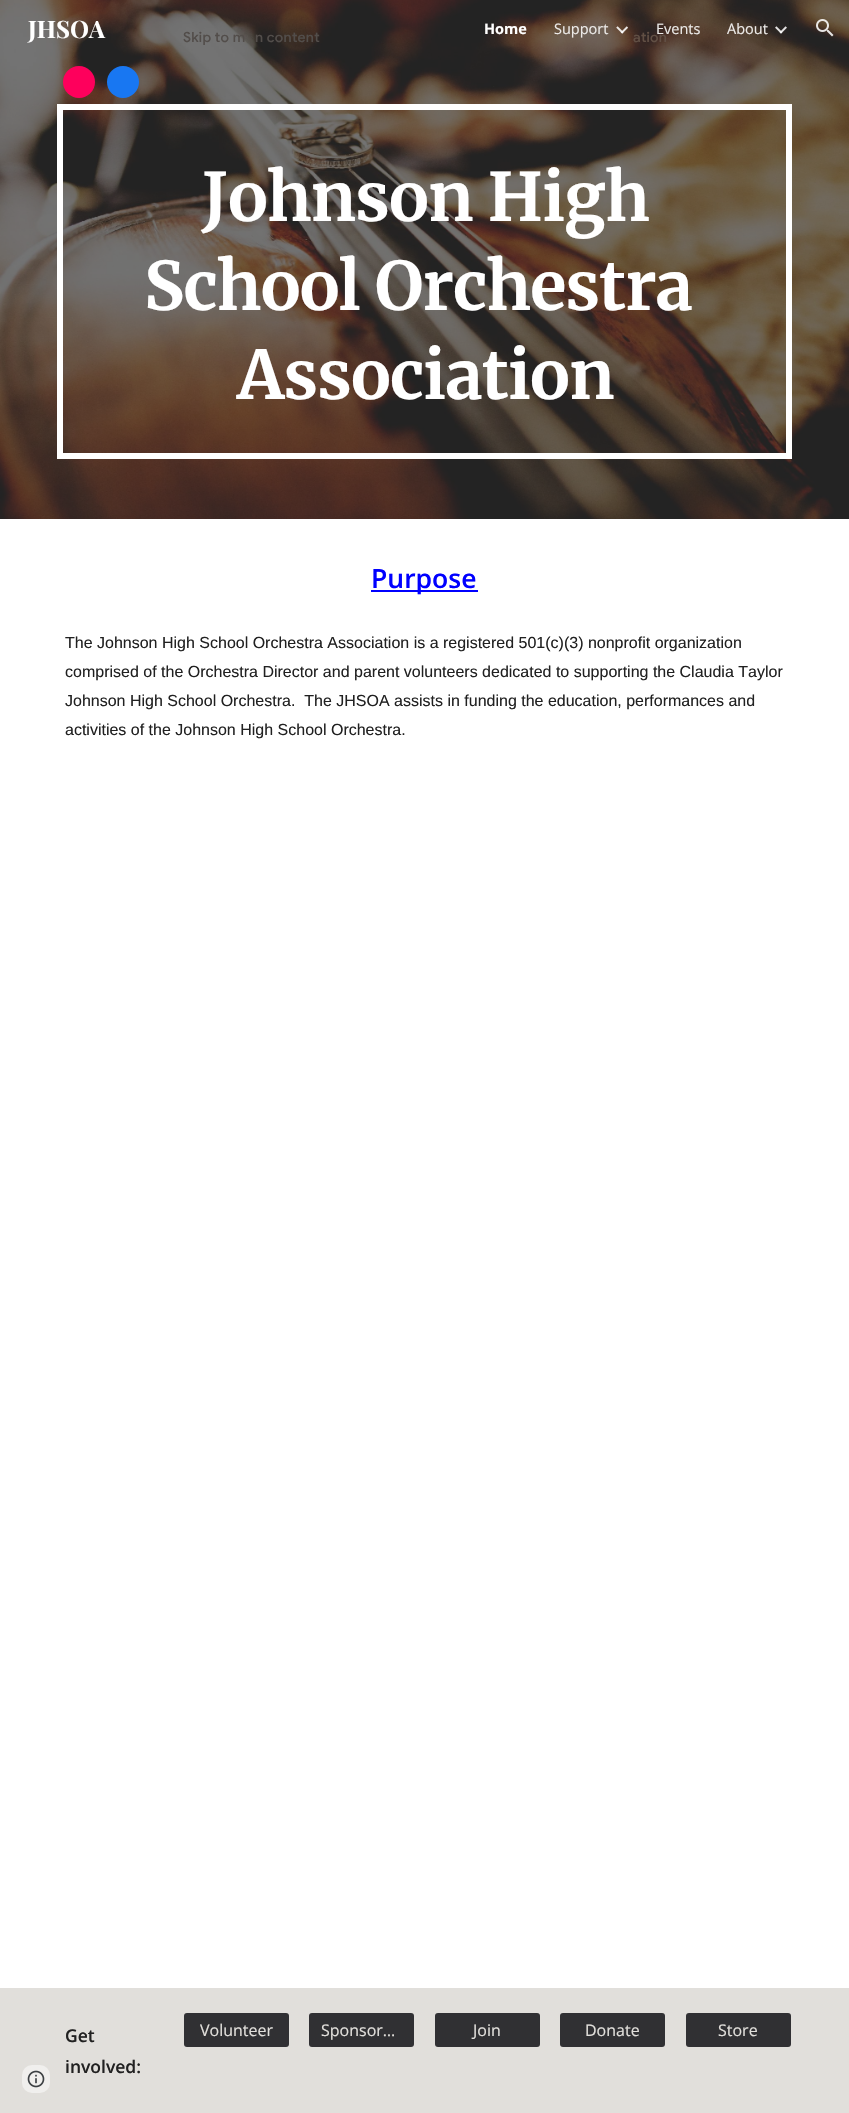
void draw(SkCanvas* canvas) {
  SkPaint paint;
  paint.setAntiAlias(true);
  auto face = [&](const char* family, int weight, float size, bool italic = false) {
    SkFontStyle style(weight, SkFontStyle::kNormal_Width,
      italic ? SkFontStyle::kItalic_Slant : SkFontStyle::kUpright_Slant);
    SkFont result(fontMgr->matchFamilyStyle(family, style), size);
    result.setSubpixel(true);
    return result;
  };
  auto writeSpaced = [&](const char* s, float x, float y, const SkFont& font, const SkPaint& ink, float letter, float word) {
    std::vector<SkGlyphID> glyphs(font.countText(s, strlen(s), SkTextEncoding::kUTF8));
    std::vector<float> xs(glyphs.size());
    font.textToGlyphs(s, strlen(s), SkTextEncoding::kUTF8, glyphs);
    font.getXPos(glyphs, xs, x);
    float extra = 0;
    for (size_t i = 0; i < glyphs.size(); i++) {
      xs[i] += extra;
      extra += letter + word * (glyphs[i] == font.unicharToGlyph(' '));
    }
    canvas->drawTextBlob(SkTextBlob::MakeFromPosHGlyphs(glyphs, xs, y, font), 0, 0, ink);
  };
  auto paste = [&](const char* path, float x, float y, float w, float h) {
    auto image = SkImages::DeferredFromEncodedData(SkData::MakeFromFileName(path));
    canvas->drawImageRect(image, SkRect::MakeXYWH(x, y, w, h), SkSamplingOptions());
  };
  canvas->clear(0xffffffff);
  paste("img/4.png", 0, 0, 849, 519);
  paste("img/1.png", 616, 26, 12, 8);
  paste("img/2.png", 775, 26, 12, 8);
  paste("img/3.png", 816, 19, 18, 18);
  paint.setColor(0xfffe005c);
  canvas->drawCircle(79, 82, 16, paint);
  paint.setColor(0xff1877f2);
  canvas->drawCircle(123, 82, 16, paint);
  paint.setStroke(true);
  paint.setStrokeWidth(6);
  paint.setColor(0xffffffff);
  canvas->drawRect(SkRect::MakeXYWH(60, 107, 729, 349), paint);
  paint.setStroke(false);
  paint.setColor(0xff0000ff);
  canvas->drawRect(SkRect::MakeXYWH(371, 590, 107, 2), paint);
  paint.setColor(0xffe1dfdb);
  canvas->drawRect(SkRect::MakeXYWH(0, 1988, 849, 125), paint);
  paint.setColor(0xff303033);
  canvas->drawRoundRect(SkRect::MakeXYWH(184, 2013, 105, 34), 3, 3, paint);
  canvas->drawRoundRect(SkRect::MakeXYWH(309, 2013, 105, 34), 3, 3, paint);
  canvas->drawRoundRect(SkRect::MakeXYWH(435, 2013, 105, 34), 3, 3, paint);
  canvas->drawRoundRect(SkRect::MakeXYWH(560, 2013, 105, 34), 3, 3, paint);
  canvas->drawRoundRect(SkRect::MakeXYWH(686, 2013, 105, 34), 3, 3, paint);
  paint.setColor(0xfff0efed);
  canvas->drawRoundRect(SkRect::MakeXYWH(22, 2065, 28, 28), 10, 10, paint);
  paste("img/5.png", 27, 2070, 18, 18);
  auto f0 = face("Playfair Display", 700, 24);
  paint.setColor(0xffffffff);
  canvas->drawString("JHSOA", 28, 38, f0, paint);
  auto f1 = face("Open Sans", 700, 14.5f);
  canvas->drawString("Home", 484, 34, f1, paint);
  auto f2 = face("Open Sans", 400, 14.5f);
  paint.setColor(0xffeceae8);
  {
    const struct { const char* s; float x, y; } items[] = {
      {"Support", 554, 34},
      {"Events", 656, 34},
      {"About", 727, 34},
    };
    for (auto [s, x, y] : items) {
      canvas->drawString(s, x, y, f2, paint);
    }
  }
  auto f3 = face("Merriweather", 700, 66.75f);
  paint.setColor(0xffffffff);
  {
    const struct { const char* s; float x, y; } items[] = {
      {"Johnson High", 202, 221},
      {"School Orchestra", 144, 310},
      {"Association", 237, 399},
    };
    for (auto [s, x, y] : items) {
      writeSpaced(s, x, y, f3, paint, -0.75f, 0);
    }
  }
  auto f4 = face("Open Sans", 600, 26.5f);
  paint.setColor(0xff0000ff);
  canvas->drawString("Purpose", 371, 588, f4, paint);
  auto f5 = face("Liberation Sans", 400, 16);
  paint.setColor(0xff212121);
  {
    const struct { const char* s; float x, y; } items[] = {
      {"The Johnson High School Orchestra Association is a registered 501(c)(3) nonprofit organization", 65, 648},
      {"comprised of the Orchestra Director and parent volunteers dedicated to supporting the Claudia Taylor", 65, 677},
      {"Johnson High School Orchestra.  The JHSOA assists in funding the education, performances and", 65, 706},
      {"activities of the Johnson High School Orchestra.", 65, 735},
    };
    for (auto [s, x, y] : items) {
      canvas->drawString(s, x, y, f5, paint);
    }
  }
  auto f6 = face("Open Sans", 600, 17.5f);
  canvas->drawString("Get", 65, 2042, f6, paint);
  canvas->drawString("involved:", 65, 2073, f6, paint);
  auto f7 = face("Open Sans", 400, 16);
  paint.setColor(0xffe1dfdb);
  {
    const struct { const char* s; float x, y; } items[] = {
      {"Volunteer", 200, 2036},
      {"Sponsor…", 321, 2036},
      {"Join", 473, 2036},
      {"Donate", 585, 2036},
      {"Store", 718, 2036},
    };
    for (auto [s, x, y] : items) {
      canvas->drawString(s, x, y, f7, paint);
    }
  }
  auto f8 = face("Google Sans", 500, 14);
  paint.setColor(0xff524d4a);
  writeSpaced("Skip to m", 183, 42, f8, paint, 0.25f, 0);
  writeSpaced("n content", 255, 42, f8, paint, 0.25f, 0);
  paint.setColor(0xff614f44);
  writeSpaced("ation", 633, 42, f8, paint, 0.25f, 0);
}
